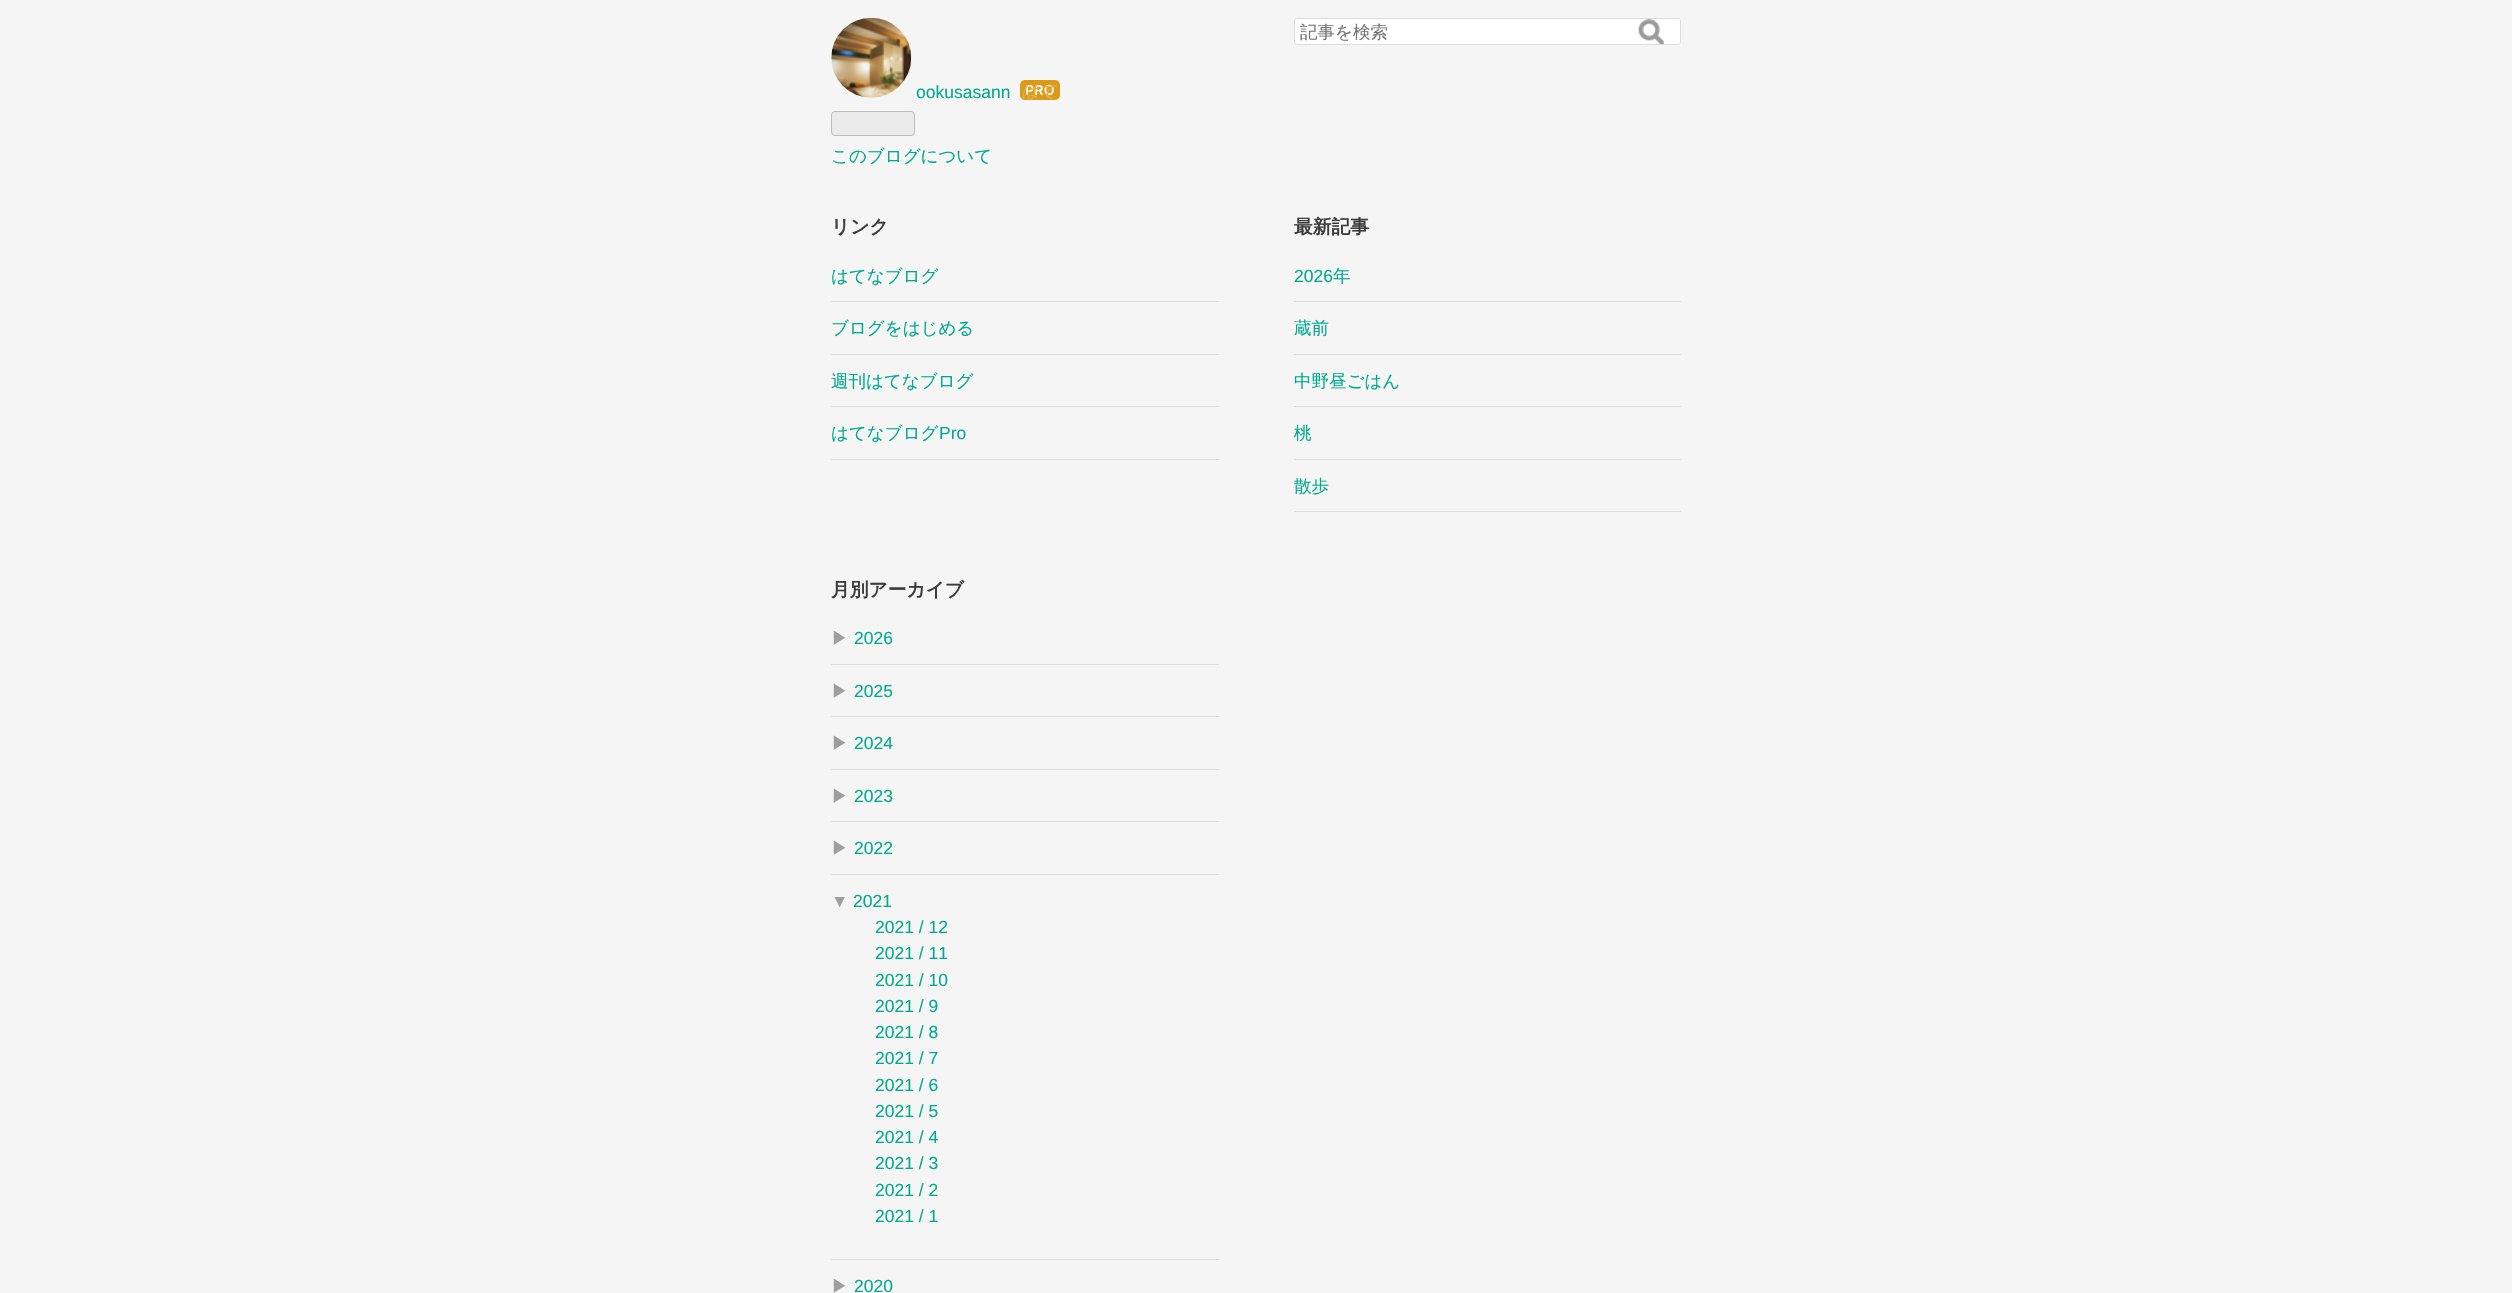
void draw(SkCanvas* canvas) {
  SkPaint paint;
  paint.setAntiAlias(true);
  auto face = [&](const char* family, int weight, float size, bool italic = false) {
    SkFontStyle style(weight, SkFontStyle::kNormal_Width,
      italic ? SkFontStyle::kItalic_Slant : SkFontStyle::kUpright_Slant);
    SkFont result(fontMgr->matchFamilyStyle(family, style), size);
    result.setSubpixel(true);
    return result;
  };
  auto paste = [&](const char* path, float x, float y, float w, float h) {
    auto image = SkImages::DeferredFromEncodedData(SkData::MakeFromFileName(path));
    canvas->drawImageRect(image, SkRect::MakeXYWH(x, y, w, h), SkSamplingOptions());
  };
  canvas->clear(0xfff5f5f5);
  paint.setColor(0xffffffff);
  canvas->drawRect(SkRect::MakeXYWH(1294, 18, 387, 27), paint);
  paint.setStroke(true);
  paint.setStrokeWidth(1);
  paint.setColor(0xffdcdcdc);
  canvas->drawRoundRect(SkRect::MakeXYWH(1294.5f, 18.5f, 386, 26), 2, 2, paint);
  paste("img/1.png", 1638, 19, 26, 25);
  paste("img/2.png", 831, 17, 81, 81);
  paste("img/3.png", 1020, 80, 40, 20);
  paint.setStroke(false);
  paint.setColor(0xffebebeb);
  canvas->drawRoundRect(SkRect::MakeXYWH(831.5f, 111.5f, 83, 24), 3.5f, 3.5f, paint);
  paint.setStroke(true);
  paint.setColor(0xffbbbbbb);
  canvas->drawRoundRect(SkRect::MakeXYWH(831.5f, 111.5f, 83, 24), 3.5f, 3.5f, paint);
  paint.setStroke(false);
  {
    const struct { float x, y, w, h; SkColor color; } items[] = {
      {831, 301, 388, 1, 0xffdcdcdc},
      {831, 354, 388, 1, 0xffdcdcdc},
      {831, 406, 388, 1, 0xffdcdcdc},
      {831, 459, 388, 1, 0xffdcdcdc},
      {1294, 301, 387, 1, 0xffdcdcdc},
      {1294, 354, 387, 1, 0xffdcdcdc},
      {1294, 406, 387, 1, 0xffdcdcdc},
      {1294, 459, 387, 1, 0xffdcdcdc},
      {1294, 511, 387, 1, 0xffdcdcdc},
      {831, 664, 388, 1, 0xffdcdcdc},
      {831, 716, 388, 1, 0xffdcdcdc},
      {831, 769, 388, 1, 0xffdcdcdc},
      {831, 821, 388, 1, 0xffdcdcdc},
      {831, 874, 388, 1, 0xffdcdcdc},
      {831, 1259, 388, 1, 0xffdcdcdc},
    };
    for (auto [x, y, w, h, color] : items) {
      paint.setColor(color);
      canvas->drawRect(SkRect::MakeXYWH(x, y, w, h), paint);
    }
  }
  auto f0 = face("WenQuanYi Zen Hei", 500, 17.5f);
  paint.setColor(0xff757575);
  canvas->drawString("記事を検索", 1300, 38, f0, paint);
  auto f1 = face("Liberation Sans", 400, 17.5f);
  paint.setColor(0xff00aa8c);
  canvas->drawString("ookusasann", 916, 98, f1, paint);
  auto f2 = face("WenQuanYi Zen Hei", 500, 17.5f, true);
  paint.setColor(0xffe2af47);
  canvas->drawString("はて", 1021, 97, f2, paint);
  paint.setColor(0xff00aa8c);
  canvas->drawString("このブログについて", 831, 162, f0, paint);
  auto f3 = face("WenQuanYi Zen Hei", 700, 18.75f);
  paint.setColor(0xff3c3c3c);
  canvas->drawString("リンク", 831, 233, f3, paint);
  paint.setColor(0xff00aa8c);
  {
    const struct { const char* s; float x, y; } items[] = {
      {"はてなブログ", 831, 282},
      {"ブログをはじめる", 831, 334},
      {"週刊はてなブログ", 831, 387},
      {"はてなブログ", 831, 439},
    };
    for (auto [s, x, y] : items) {
      canvas->drawString(s, x, y, f0, paint);
    }
  }
  canvas->drawString("Pro", 939, 439, f1, paint);
  paint.setColor(0xff3c3c3c);
  canvas->drawString("最新記事", 1294, 233, f3, paint);
  paint.setColor(0xff00aa8c);
  canvas->drawString("2026", 1294, 282, f1, paint);
  {
    const struct { const char* s; float x, y; } items[] = {
      {"年", 1333, 282},
      {"蔵前", 1294, 334},
      {"中野昼ごはん", 1294, 387},
      {"桃", 1294, 439},
      {"散歩", 1294, 492},
    };
    for (auto [s, x, y] : items) {
      canvas->drawString(s, x, y, f0, paint);
    }
  }
  paint.setColor(0xff3c3c3c);
  canvas->drawString("月別アーカイブ", 831, 596, f3, paint);
  paint.setColor(0xff9e9e9e);
  canvas->drawString("▶", 831, 644, f0, paint);
  paint.setColor(0xff00aa8c);
  canvas->drawString("2026", 854, 644, f1, paint);
  paint.setColor(0xff9e9e9e);
  canvas->drawString("▶", 831, 697, f0, paint);
  paint.setColor(0xff00aa8c);
  canvas->drawString("2025", 854, 697, f1, paint);
  paint.setColor(0xff9e9e9e);
  canvas->drawString("▶", 831, 749, f0, paint);
  paint.setColor(0xff00aa8c);
  canvas->drawString("2024", 854, 749, f1, paint);
  paint.setColor(0xff9e9e9e);
  canvas->drawString("▶", 831, 802, f0, paint);
  paint.setColor(0xff00aa8c);
  canvas->drawString("2023", 854, 802, f1, paint);
  paint.setColor(0xff9e9e9e);
  canvas->drawString("▶", 831, 854, f0, paint);
  paint.setColor(0xff00aa8c);
  canvas->drawString("2022", 854, 854, f1, paint);
  paint.setColor(0xff9e9e9e);
  canvas->drawString("▼", 831, 907, f1, paint);
  paint.setColor(0xff00aa8c);
  {
    const struct { const char* s; float x, y; } items[] = {
      {"2021", 853, 907},
      {"2021 / 12", 875, 933},
      {"2021 / 11", 875, 959},
      {"2021 / 10", 875, 986},
      {"2021 / 9", 875, 1012},
      {"2021 / 8", 875, 1038},
      {"2021 / 7", 875, 1064},
      {"2021 / 6", 875, 1091},
      {"2021 / 5", 875, 1117},
      {"2021 / 4", 875, 1143},
      {"2021 / 3", 875, 1169},
      {"2021 / 2", 875, 1196},
      {"2021 / 1", 875, 1222},
    };
    for (auto [s, x, y] : items) {
      canvas->drawString(s, x, y, f1, paint);
    }
  }
  paint.setColor(0xff9e9e9e);
  canvas->drawString("▶", 831, 1292, f0, paint);
  paint.setColor(0xff00aa8c);
  canvas->drawString("2020", 854, 1292, f1, paint);
}
